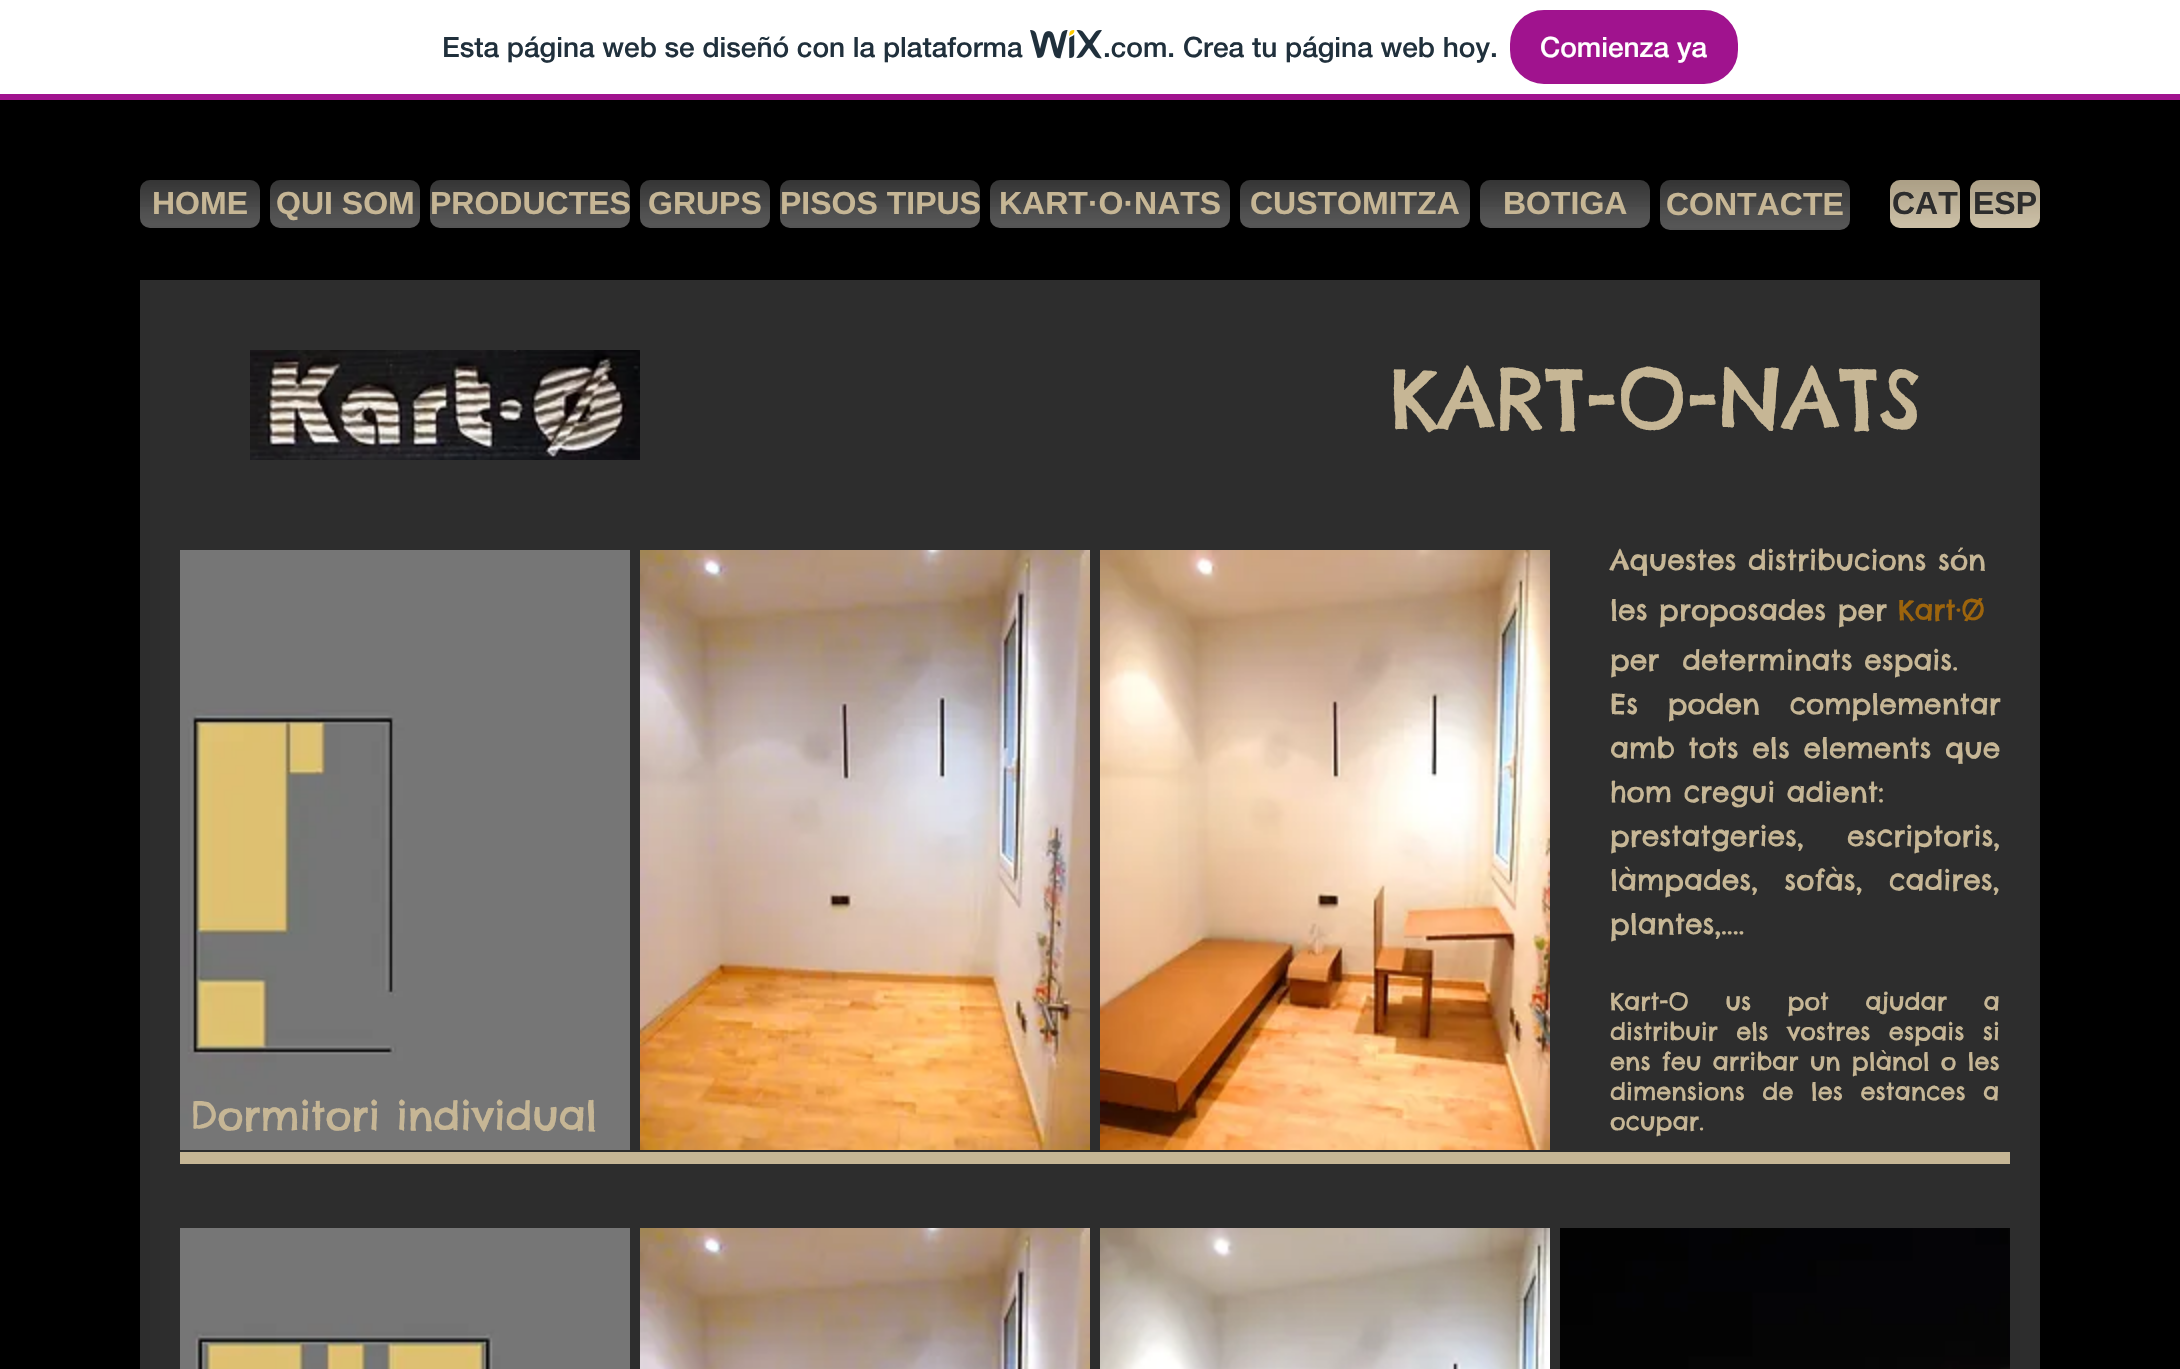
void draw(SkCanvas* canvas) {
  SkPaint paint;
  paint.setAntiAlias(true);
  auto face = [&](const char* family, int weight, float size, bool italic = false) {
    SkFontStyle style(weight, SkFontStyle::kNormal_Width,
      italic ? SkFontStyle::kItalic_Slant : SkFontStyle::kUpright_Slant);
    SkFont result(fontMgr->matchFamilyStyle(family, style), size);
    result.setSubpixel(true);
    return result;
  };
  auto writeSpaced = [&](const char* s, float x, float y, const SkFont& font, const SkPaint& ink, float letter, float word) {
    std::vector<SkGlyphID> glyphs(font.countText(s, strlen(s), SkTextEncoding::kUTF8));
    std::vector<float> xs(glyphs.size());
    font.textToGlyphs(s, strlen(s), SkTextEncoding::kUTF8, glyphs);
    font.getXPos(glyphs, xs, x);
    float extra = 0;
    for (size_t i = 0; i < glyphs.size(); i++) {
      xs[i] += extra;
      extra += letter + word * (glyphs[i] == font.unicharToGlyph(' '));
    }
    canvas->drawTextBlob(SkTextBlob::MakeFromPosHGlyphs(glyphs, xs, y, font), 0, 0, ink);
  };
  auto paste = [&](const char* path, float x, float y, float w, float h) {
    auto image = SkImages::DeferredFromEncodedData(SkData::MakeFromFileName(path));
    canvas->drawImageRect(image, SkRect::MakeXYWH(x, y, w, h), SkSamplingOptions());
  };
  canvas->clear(0xffffffff);
  paint.setColor(0xffa0138e);
  canvas->drawRect(SkRect::MakeXYWH(0, 94, 2180, 6), paint);
  paste("img/1.png", 1030, 30, 72, 29);
  canvas->drawRoundRect(SkRect::MakeXYWH(1511, 11, 226, 72), 33, 33, paint);
  paint.setStroke(true);
  paint.setStrokeWidth(2);
  canvas->drawRoundRect(SkRect::MakeXYWH(1511, 11, 226, 72), 33, 33, paint);
  paint.setStroke(false);
  paint.setColor(0xff000000);
  canvas->drawRect(SkRect::MakeXYWH(0, 100, 2180, 1269), paint);
  paint.setColor(0xff2d2d2d);
  canvas->drawRoundRect(SkRect::MakeXYWH(140, 180, 120, 48), 10, 10, paint);
  paste("img/2.png", 140, 180, 120, 27);
  paste("img/3.png", 140, 180, 120, 48);
  canvas->drawRoundRect(SkRect::MakeXYWH(270, 180, 150, 48), 10, 10, paint);
  paste("img/4.png", 270, 180, 150, 27);
  paste("img/5.png", 270, 180, 150, 48);
  canvas->drawRoundRect(SkRect::MakeXYWH(430, 180, 200, 48), 10, 10, paint);
  paste("img/6.png", 430, 180, 200, 27);
  paste("img/7.png", 430, 180, 200, 48);
  canvas->drawRoundRect(SkRect::MakeXYWH(640, 180, 130, 48), 10, 10, paint);
  paste("img/8.png", 640, 180, 130, 27);
  paste("img/9.png", 640, 180, 130, 48);
  canvas->drawRoundRect(SkRect::MakeXYWH(780, 180, 200, 48), 10, 10, paint);
  paste("img/10.png", 780, 180, 200, 27);
  paste("img/7.png", 780, 180, 200, 48);
  canvas->drawRoundRect(SkRect::MakeXYWH(990, 180, 240, 48), 10, 10, paint);
  paste("img/11.png", 990, 180, 240, 27);
  paste("img/12.png", 990, 180, 240, 48);
  canvas->drawRoundRect(SkRect::MakeXYWH(1240, 180, 230, 48), 10, 10, paint);
  paste("img/13.png", 1240, 180, 230, 27);
  paste("img/14.png", 1240, 180, 230, 48);
  canvas->drawRoundRect(SkRect::MakeXYWH(1480, 180, 170, 48), 10, 10, paint);
  paste("img/15.png", 1480, 180, 170, 27);
  paste("img/16.png", 1480, 180, 170, 48);
  canvas->drawRoundRect(SkRect::MakeXYWH(1660, 180, 190, 50), 10, 10, paint);
  paste("img/17.png", 1660, 180, 190, 27);
  paste("img/18.png", 1660, 180, 190, 50);
  paint.setColor(0xffc6b695);
  canvas->drawRoundRect(SkRect::MakeXYWH(1890, 180, 70, 48), 10, 10, paint);
  paste("img/19.png", 1890, 180, 70, 48);
  paste("img/20.png", 1890, 180, 70, 48);
  canvas->drawRoundRect(SkRect::MakeXYWH(1970, 180, 70, 48), 10, 10, paint);
  paste("img/21.png", 1970, 180, 70, 48);
  paste("img/22.png", 1970, 180, 70, 48);
  paint.setColor(0xff2d2d2d);
  canvas->drawRect(SkRect::MakeXYWH(140, 280, 1900, 1089), paint);
  paste("img/23.png", 250, 350, 390, 110);
  paste("img/24.png", 180, 550, 450, 600);
  paste("img/25.png", 640, 550, 450, 600);
  paste("img/26.png", 1100, 550, 450, 600);
  paint.setColor(0xffc6b695);
  canvas->drawRect(SkRect::MakeXYWH(180, 1152, 1830, 12), paint);
  paste("img/27.png", 180, 1228, 450, 141);
  paste("img/28.png", 640, 1228, 450, 141);
  paste("img/29.png", 1100, 1228, 450, 141);
  paste("img/30.png", 1560, 1228, 450, 141);
  auto f0 = face("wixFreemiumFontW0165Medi", 500, 28);
  paint.setColor(0xff20303c);
  canvas->drawString("Esta página web se diseñó con la plataforma", 442, 57, f0, paint);
  canvas->drawString(".com. Crea tu página web hoy.", 1103, 57, f0, paint);
  paint.setColor(0xffffffff);
  canvas->drawString("Comienza ya", 1540, 57, f0, paint);
  auto f1 = face("Liberation Sans", 700, 32);
  paint.setColor(0xffc6b695);
  {
    const struct { const char* s; float x, y; } items[] = {
      {"HOME", 152, 214},
      {"QUI SOM", 276, 214},
      {"PRODUCTES", 430, 214},
      {"GRUPS", 648, 214},
      {"PISOS TIPUS", 780, 214},
      {"KART·O·NATS", 999, 214},
      {"CUSTOMITZA", 1250, 214},
      {"BOTIGA", 1503, 214},
      {"CONTACTE", 1666, 215},
    };
    for (auto [s, x, y] : items) {
      canvas->drawString(s, x, y, f1, paint);
    }
  }
  paint.setColor(0xff2d2d2d);
  canvas->drawString("CAT", 1892, 214, f1, paint);
  canvas->drawString("ESP", 1973, 214, f1, paint);
  auto f2 = face("Chelsea Market", 400, 82);
  paint.setColor(0xffc6b695);
  canvas->drawString("KART-O-NATS", 1390, 428, f2, paint);
  auto f3 = face("Chelsea Market", 400, 28);
  canvas->drawString("Aquestes distribucions són", 1610, 570, f3, paint);
  canvas->drawString("les proposades per", 1610, 620, f3, paint);
  paint.setColor(0xff9d640c);
  canvas->drawString("Kart·Ø", 1898, 620, f3, paint);
  paint.setColor(0xffc6b695);
  canvas->drawString("per  determinats espais.", 1610, 670, f3, paint);
  writeSpaced("Es poden complementar", 1610, 714, f3, paint, 0, 18);
  writeSpaced("amb tots els elements que", 1610, 758, f3, paint, 0, 2);
  canvas->drawString("hom cregui adient:", 1610, 802, f3, paint);
  writeSpaced("prestatgeries, escriptoris,", 1610, 846, f3, paint, 0, 32);
  writeSpaced("làmpades, sofàs, cadires,", 1610, 890, f3, paint, 0, 15);
  canvas->drawString("plantes,....", 1610, 934, f3, paint);
  auto f4 = face("Chelsea Market", 400, 24);
  writeSpaced("Kart-O us pot ajudar a", 1610, 1010, f4, paint, 0, 26.5f);
  writeSpaced("distribuir els vostres espais si", 1610, 1040, f4, paint, 0, 8.5f);
  writeSpaced("ens feu arribar un plànol o les", 1610, 1070, f4, paint, 0, 1.25f);
  writeSpaced("dimensions de les estances a", 1610, 1100, f4, paint, 0, 7.5f);
  canvas->drawString("ocupar.", 1610, 1130, f4, paint);
  auto f5 = face("Chelsea Market", 400, 40);
  canvas->drawString("Dormitori individual", 190, 1130, f5, paint);
}
